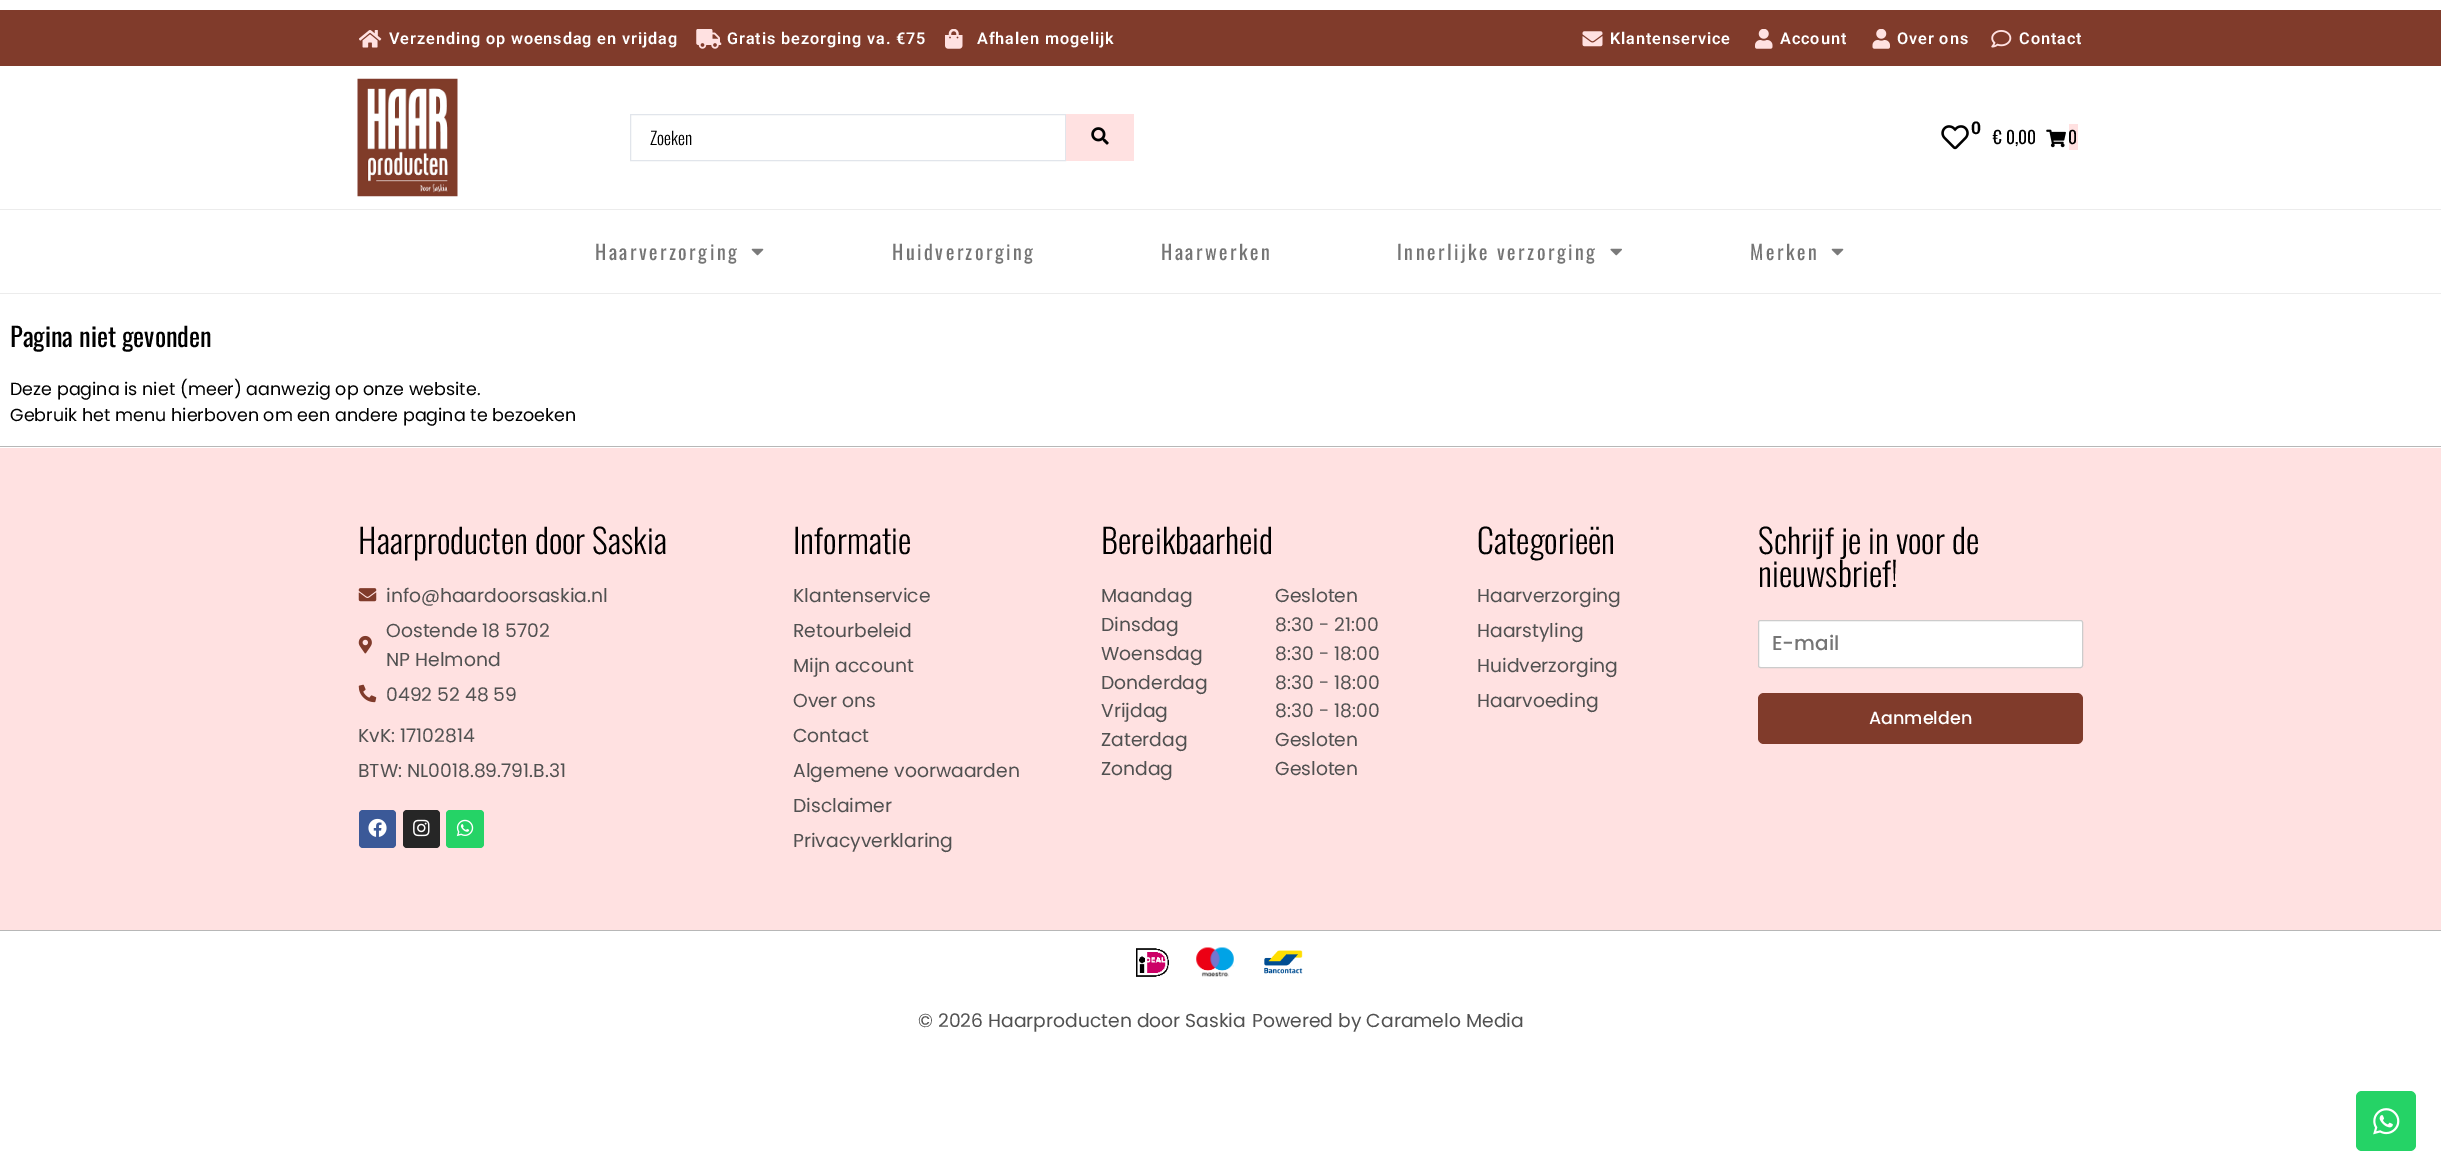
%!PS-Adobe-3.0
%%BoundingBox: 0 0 2441 1176
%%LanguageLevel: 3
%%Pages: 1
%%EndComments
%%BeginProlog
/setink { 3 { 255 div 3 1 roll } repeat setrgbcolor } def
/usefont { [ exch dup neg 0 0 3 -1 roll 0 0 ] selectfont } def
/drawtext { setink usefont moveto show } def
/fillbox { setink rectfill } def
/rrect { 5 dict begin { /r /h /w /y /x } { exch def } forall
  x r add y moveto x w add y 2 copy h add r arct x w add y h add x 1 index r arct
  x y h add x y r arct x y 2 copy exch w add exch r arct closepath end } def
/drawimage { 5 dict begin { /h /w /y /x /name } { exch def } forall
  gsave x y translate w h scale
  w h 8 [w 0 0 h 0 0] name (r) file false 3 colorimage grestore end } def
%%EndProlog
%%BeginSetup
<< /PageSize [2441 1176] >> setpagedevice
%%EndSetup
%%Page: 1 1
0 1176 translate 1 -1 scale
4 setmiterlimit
0 0 2441 1176 255 255 255 fillbox
0 10 2441 56 128 59 43 fillbox
(assets/img1.rgb) 359 30 23 18 drawimage
/Roboto-SemiBold 16.25 usefont
255 255 255 setink
389 44 moveto 0.9 0 (Verzending op woensdag en vrijdag) ashow
(assets/img2.rgb) 696 29 26 20 drawimage
727 44 moveto 0.9 0 (Gratis bezorging va. €75) ashow
(assets/img3.rgb) 945 29 18 20 drawimage
977 44 moveto 0.9 0 (Afhalen mogelijk) ashow
(assets/img4.rgb) 1582 31 21 16 drawimage
1610 44 moveto 0.9 0 (Klantenservice) ashow
(assets/img5.rgb) 1755 29 18 20 drawimage
1780 44 moveto 0.9 0 (Account) ashow
(assets/img6.rgb) 1872 29 18 20 drawimage
1897 44 moveto 0.9 0 (Over ons) ashow
(assets/img7.rgb) 1991 30 21 18 drawimage
2019 44 moveto 0.9 0 (Contact) ashow
(assets/img8.rgb) 357 78 101 119 drawimage
225 229 235 setink
630.5 114.5 435 46 rectstroke
(Zoeken) 650 145 /Oswald-Light 17.5 0 0 0 drawtext
1066 114 68 47 255 225 225 fillbox
(assets/img9.rgb) 1091 127 18 18 drawimage
(assets/img10.rgb) 1941 125 28 25 drawimage
(0) 1971 134 /Roboto-Bold 17.5 0 0 0 drawtext
(€ 0,00) 1993 144 /Oswald-Regular 17.5 0 0 0 drawtext
(assets/img11.rgb) 2046 129 20 19 drawimage
2069 124 9 26 255 225 225 fillbox
(0) 2068 144 /Oswald-Regular 17.5 0 0 0 drawtext
0 209 2441 1 236 236 236 fillbox
0 293 2441 1 236 236 236 fillbox
/Oswald-Regular 20 usefont
117 117 117 setink
595 260 moveto 2.5 0 (Haarverzorging) ashow
(assets/img12.rgb) 751 248 13 8 drawimage
892 260 moveto 2.5 0 (Huidverzorging) ashow
1161 260 moveto 2.5 0 (Haarwerken) ashow
1397 260 moveto 2.5 0 (Innerlijke verzorging) ashow
(assets/img13.rgb) 1610 248 12 8 drawimage
1750 260 moveto 2.5 0 (Merken) ashow
(assets/img12.rgb) 1831 248 13 8 drawimage
(Pagina niet gevonden) 10 347 /Oswald-Regular 26.25 0 0 0 drawtext
(Deze pagina is niet \(meer\) aanwezig op onze website.) 10 395 /Poppins-Regular 17.5 0 0 0 drawtext
(Gebruik het menu hierboven om een andere pagina te bezoeken) 10 421 /Poppins-Regular 17.5 0 0 0 drawtext
0 448 2441 482 255 225 225 fillbox
0 446 2441 1 183 183 183 fillbox
(Haarproducten door Saskia) 358 554 /Oswald-Light 33.75 0 0 0 drawtext
(assets/img14.rgb) 358 588 19 14 drawimage
(info@haardoorsaskia.nl) 386 602 /Poppins-Regular 18.75 81 81 81 drawtext
(assets/img15.rgb) 358 635 14 19 drawimage
(Oostende 18 5702) 386 637 /Poppins-Regular 18.75 81 81 81 drawtext
(NP Helmond) 386 666 /Poppins-Regular 18.75 81 81 81 drawtext
(assets/img16.rgb) 358 684 19 19 drawimage
(0492 52 48 59) 386 701 /Poppins-Regular 18.75 81 81 81 drawtext
(KvK: 17102814) 358 742 /Poppins-Regular 18.75 81 81 81 drawtext
(BTW: NL0018.89.791.B.31) 358 777 /Poppins-Regular 18.75 81 81 81 drawtext
59 89 152 setink
359 810 37 38 4 rrect fill
(assets/img17.rgb) 368 818 19 19 drawimage
38 38 38 setink
403 810 37 38 4 rrect fill
(assets/img18.rgb) 413 819 17 18 drawimage
37 211 102 setink
446 810 38 38 4 rrect fill
(assets/img19.rgb) 456 819 18 18 drawimage
(Informatie) 793 554 /Oswald-Light 33.75 0 0 0 drawtext
(Klantenservice) 793 602 /Poppins-Regular 18.75 81 81 81 drawtext
(Retourbeleid) 793 637 /Poppins-Regular 18.75 81 81 81 drawtext
(Mijn account) 793 672 /Poppins-Regular 18.75 81 81 81 drawtext
(Over ons) 793 707 /Poppins-Regular 18.75 81 81 81 drawtext
(Contact) 793 742 /Poppins-Regular 18.75 81 81 81 drawtext
(Algemene voorwaarden) 793 777 /Poppins-Regular 18.75 81 81 81 drawtext
(Disclaimer) 793 812 /Poppins-Regular 18.75 81 81 81 drawtext
(Privacyverklaring) 793 847 /Poppins-Regular 18.75 81 81 81 drawtext
(Bereikbaarheid) 1101 554 /Oswald-Light 33.75 0 0 0 drawtext
(Maandag) 1101 602 /Poppins-Regular 18.75 81 81 81 drawtext
(Dinsdag) 1101 631 /Poppins-Regular 18.75 81 81 81 drawtext
(Woensdag) 1101 660 /Poppins-Regular 18.75 81 81 81 drawtext
(Donderdag) 1101 689 /Poppins-Regular 18.75 81 81 81 drawtext
(Vrijdag) 1101 717 /Poppins-Regular 18.75 81 81 81 drawtext
(Zaterdag) 1101 746 /Poppins-Regular 18.75 81 81 81 drawtext
(Zondag) 1101 775 /Poppins-Regular 18.75 81 81 81 drawtext
(Gesloten) 1275 602 /Poppins-Regular 18.75 81 81 81 drawtext
(8:30 - 21:00) 1275 631 /Poppins-Regular 18.75 81 81 81 drawtext
(8:30 - 18:00) 1275 660 /Poppins-Regular 18.75 81 81 81 drawtext
(8:30 - 18:00) 1275 689 /Poppins-Regular 18.75 81 81 81 drawtext
(8:30 - 18:00) 1275 717 /Poppins-Regular 18.75 81 81 81 drawtext
(Gesloten) 1275 746 /Poppins-Regular 18.75 81 81 81 drawtext
(Gesloten) 1275 775 /Poppins-Regular 18.75 81 81 81 drawtext
(Categorieën) 1477 554 /Oswald-Light 33.75 0 0 0 drawtext
(Haarverzorging) 1477 602 /Poppins-Regular 18.75 81 81 81 drawtext
(Haarstyling) 1477 637 /Poppins-Regular 18.75 81 81 81 drawtext
(Huidverzorging) 1477 672 /Poppins-Regular 18.75 81 81 81 drawtext
(Haarvoeding) 1477 707 /Poppins-Regular 18.75 81 81 81 drawtext
(Schrijf je in voor de) 1758 554 /Oswald-Light 33.75 0 0 0 drawtext
(nieuwsbrief!) 1758 587 /Oswald-Light 33.75 0 0 0 drawtext
255 255 255 setink
1758.5 620.5 324 47 2 rrect gsave fill grestore
204 204 204 setink
stroke
(E-mail) 1772 650 /Poppins-Medium 20 117 117 117 drawtext
128 59 43 setink
1758 693 325 51 6 rrect fill
(Aanmelden) 1869 724 /Poppins-Medium 17.5 255 255 255 drawtext
0 930 2441 1 183 183 183 fillbox
(assets/img20.rgb) 1136 948 33 29 drawimage
(assets/img21.rgb) 1196 947 38 30 drawimage
(assets/img22.rgb) 1264 950 39 24 drawimage
(© 2026 Haarproducten door Saskia) 918 1027 /Poppins-Regular 18.75 81 81 81 drawtext
(Powered by Caramelo Media) 1252 1027 /Poppins-Regular 18.75 81 81 81 drawtext
37 211 102 setink
2356 1091 60 60 6 rrect fill
(assets/img23.rgb) 2373 1108 27 27 drawimage
showpage
%%EOF
